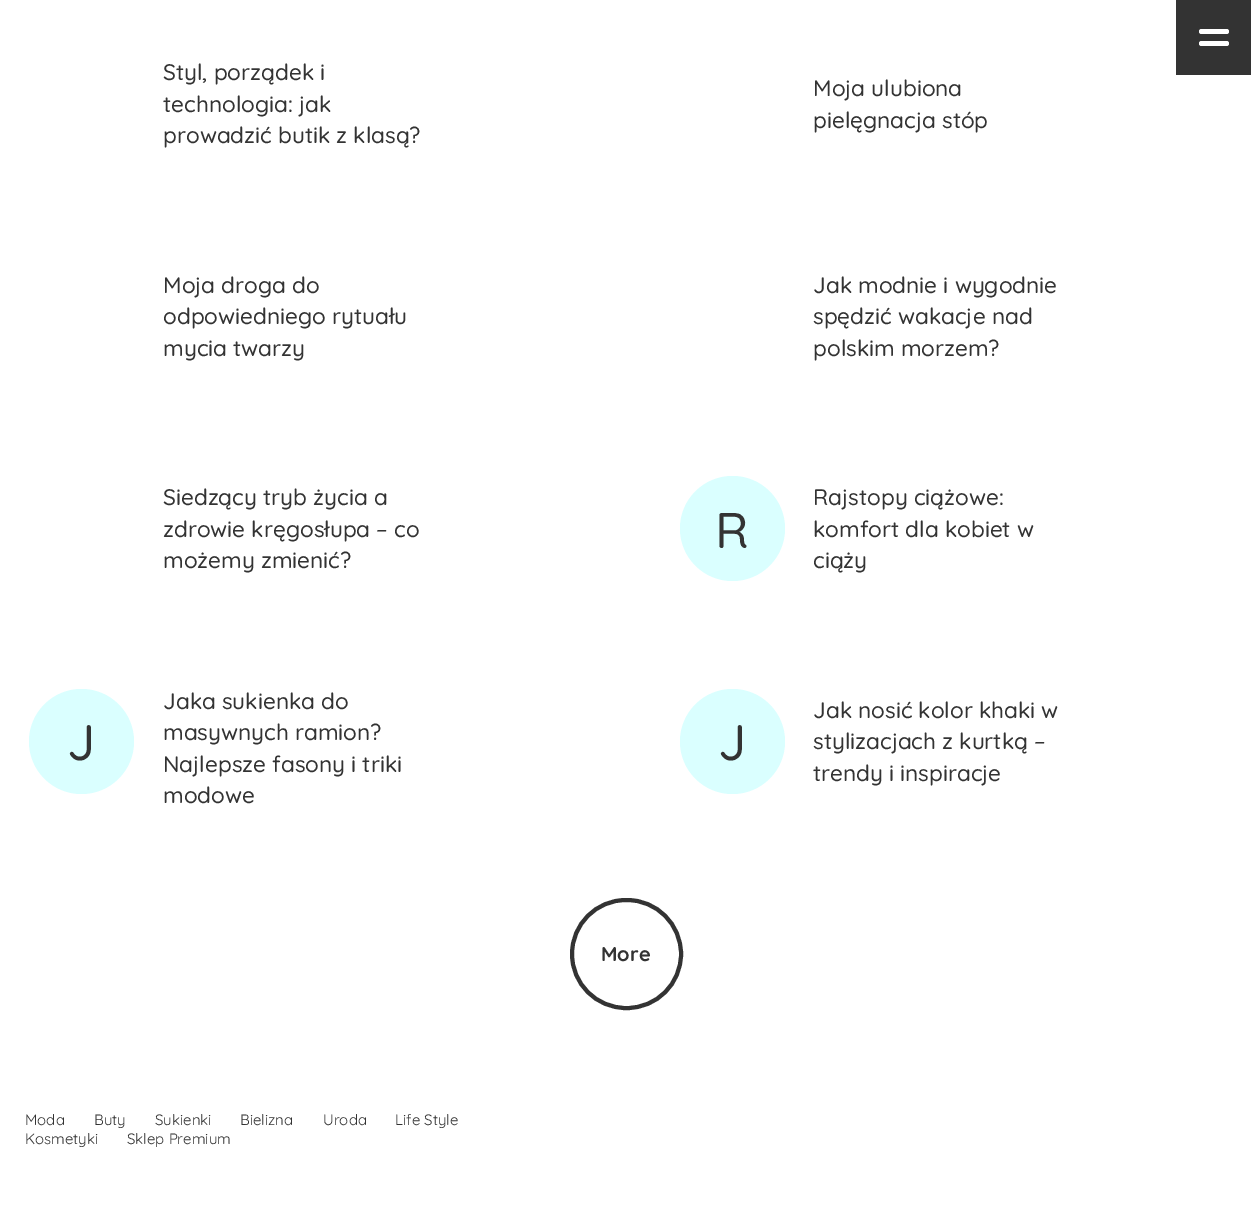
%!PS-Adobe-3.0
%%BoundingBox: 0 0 1251 1220
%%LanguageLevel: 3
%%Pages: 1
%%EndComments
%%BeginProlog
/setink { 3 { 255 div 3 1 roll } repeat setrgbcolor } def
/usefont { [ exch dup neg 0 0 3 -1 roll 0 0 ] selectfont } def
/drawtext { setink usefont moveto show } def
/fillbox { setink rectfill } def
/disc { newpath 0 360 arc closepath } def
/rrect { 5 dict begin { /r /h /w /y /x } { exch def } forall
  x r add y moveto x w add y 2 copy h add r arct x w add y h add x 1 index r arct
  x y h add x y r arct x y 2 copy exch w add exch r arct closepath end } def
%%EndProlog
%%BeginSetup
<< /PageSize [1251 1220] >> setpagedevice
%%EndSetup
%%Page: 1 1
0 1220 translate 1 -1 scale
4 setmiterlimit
0 0 1251 1220 255 255 255 fillbox
1176 0 75 75 51 51 51 fillbox
255 255 255 setink
1199 29 30 5 2.5 rrect fill
1199 41 30 5 2.5 rrect fill
(Styl, porządek i) 163 80 /Quicksand-Medium 22.5 51 51 51 drawtext
(technologia: jak) 163 112 /Quicksand-Medium 22.5 51 51 51 drawtext
(prowadzić butik z klasą?) 163 143 /Quicksand-Medium 22.5 51 51 51 drawtext
(Moja ulubiona) 813 96 /Quicksand-Medium 22.5 51 51 51 drawtext
(pielęgnacja stóp) 813 128 /Quicksand-Medium 22.5 51 51 51 drawtext
(Moja droga do) 163 293 /Quicksand-Medium 22.5 51 51 51 drawtext
(odpowiedniego rytuału) 163 324 /Quicksand-Medium 22.5 51 51 51 drawtext
(mycia twarzy) 163 356 /Quicksand-Medium 22.5 51 51 51 drawtext
(Jak modnie i wygodnie) 813 293 /Quicksand-Medium 22.5 51 51 51 drawtext
(spędzić wakacje nad) 813 324 /Quicksand-Medium 22.5 51 51 51 drawtext
(polskim morzem?) 813 356 /Quicksand-Medium 22.5 51 51 51 drawtext
(Siedzący tryb życia a) 163 505 /Quicksand-Medium 22.5 51 51 51 drawtext
(zdrowie kręgosłupa – co) 163 537 /Quicksand-Medium 22.5 51 51 51 drawtext
(możemy zmienić?) 163 568 /Quicksand-Medium 22.5 51 51 51 drawtext
218 255 255 setink
732.5 528.5 52.5 disc fill
(R) 715 548 /Quicksand-Medium 50 51 51 51 drawtext
(Rajstopy ciążowe:) 813 505 /Quicksand-Medium 22.5 51 51 51 drawtext
(komfort dla kobiet w) 813 537 /Quicksand-Medium 22.5 51 51 51 drawtext
(ciąży) 813 568 /Quicksand-Medium 22.5 51 51 51 drawtext
218 255 255 setink
81.5 741.5 52.5 disc fill
(J) 67 760 /Quicksand-Medium 50 51 51 51 drawtext
(Jaka sukienka do) 163 709 /Quicksand-Medium 22.5 51 51 51 drawtext
(masywnych ramion?) 163 740 /Quicksand-Medium 22.5 51 51 51 drawtext
(Najlepsze fasony i triki) 163 772 /Quicksand-Medium 22.5 51 51 51 drawtext
(modowe) 163 803 /Quicksand-Medium 22.5 51 51 51 drawtext
218 255 255 setink
732.5 741.5 52.5 disc fill
(J) 718 760 /Quicksand-Medium 50 51 51 51 drawtext
(Jak nosić kolor khaki w) 813 718 /Quicksand-Medium 22.5 51 51 51 drawtext
(stylizacjach z kurtką –) 813 749 /Quicksand-Medium 22.5 51 51 51 drawtext
(trendy i inspiracje) 813 781 /Quicksand-Medium 22.5 51 51 51 drawtext
4 setlinewidth
572 900 109 108 54 rrect stroke
(More) 601 961 /Quicksand-Bold 20 51 51 51 drawtext
(Moda) 25 1125 /Quicksand-Regular 15 51 51 51 drawtext
(Buty) 94 1125 /Quicksand-Regular 15 51 51 51 drawtext
(Sukienki) 155 1125 /Quicksand-Regular 15 51 51 51 drawtext
(Bielizna) 240 1125 /Quicksand-Regular 15 51 51 51 drawtext
(Uroda) 323 1125 /Quicksand-Regular 15 51 51 51 drawtext
(Life Style) 395 1125 /Quicksand-Regular 15 51 51 51 drawtext
(Kosmetyki) 25 1144 /Quicksand-Regular 15 51 51 51 drawtext
(Sklep Premium) 127 1144 /Quicksand-Regular 15 51 51 51 drawtext
showpage
%%EOF
